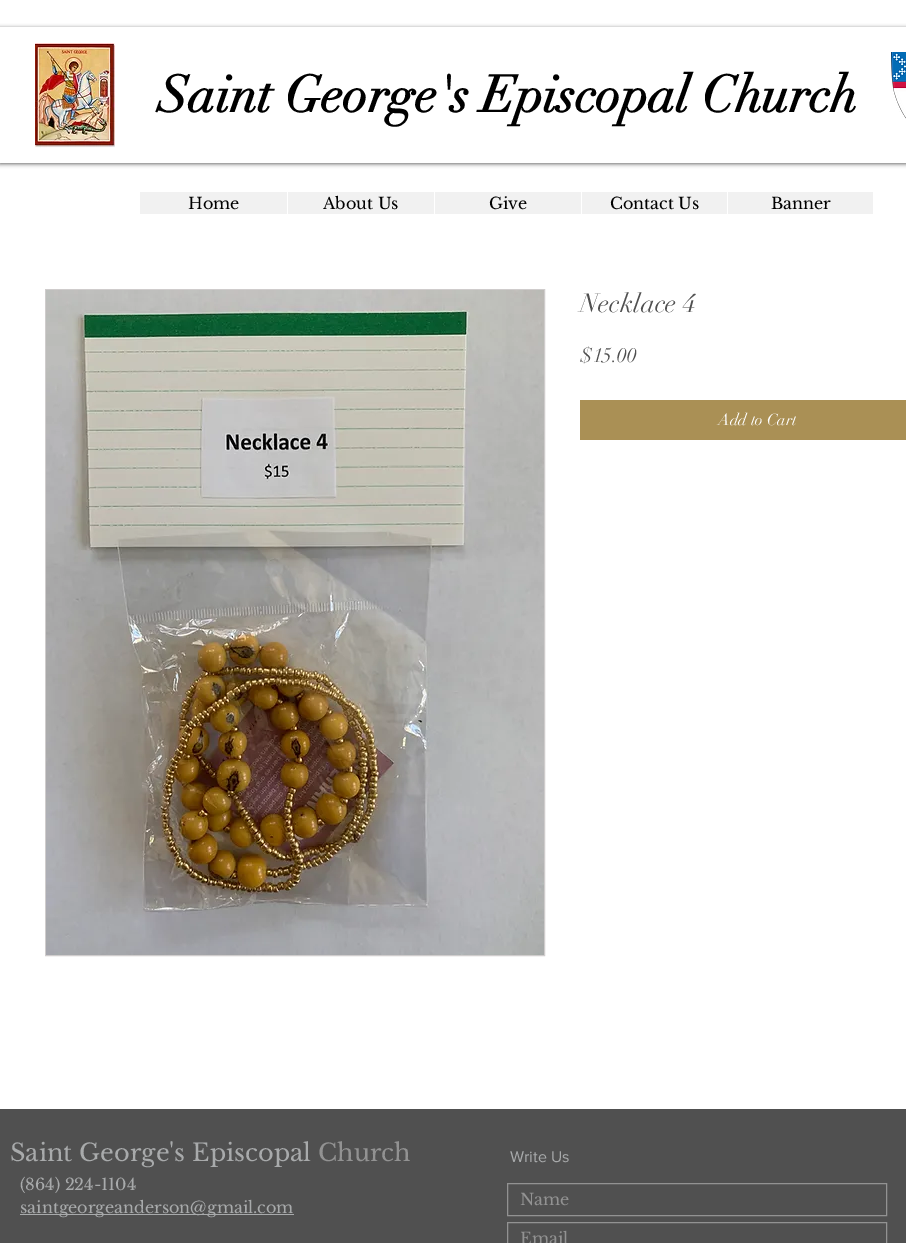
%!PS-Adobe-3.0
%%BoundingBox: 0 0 906 1243
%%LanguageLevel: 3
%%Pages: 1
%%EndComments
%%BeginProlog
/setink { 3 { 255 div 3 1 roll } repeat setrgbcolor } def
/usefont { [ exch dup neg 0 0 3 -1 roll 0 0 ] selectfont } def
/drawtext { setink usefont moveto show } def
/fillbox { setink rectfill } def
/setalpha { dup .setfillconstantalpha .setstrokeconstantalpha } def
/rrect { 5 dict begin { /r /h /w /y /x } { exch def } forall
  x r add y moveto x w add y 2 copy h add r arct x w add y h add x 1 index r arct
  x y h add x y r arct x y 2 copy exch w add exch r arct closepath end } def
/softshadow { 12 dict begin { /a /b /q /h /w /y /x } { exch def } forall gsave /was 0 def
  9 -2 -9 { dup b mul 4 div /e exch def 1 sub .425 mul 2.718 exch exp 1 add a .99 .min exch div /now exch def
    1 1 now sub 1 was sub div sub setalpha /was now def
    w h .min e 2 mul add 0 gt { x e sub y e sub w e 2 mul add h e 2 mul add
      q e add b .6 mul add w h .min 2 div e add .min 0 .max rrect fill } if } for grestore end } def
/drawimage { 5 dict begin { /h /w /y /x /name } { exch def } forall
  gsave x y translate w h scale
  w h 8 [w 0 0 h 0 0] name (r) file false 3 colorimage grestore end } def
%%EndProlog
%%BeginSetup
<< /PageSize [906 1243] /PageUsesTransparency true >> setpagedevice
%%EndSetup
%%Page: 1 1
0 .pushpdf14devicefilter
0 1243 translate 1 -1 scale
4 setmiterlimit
0 0 906 1243 255 255 255 fillbox
gsave
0 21 moveto 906 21 lineto 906 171 lineto 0 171 lineto closepath 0 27 moveto 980 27 lineto 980 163 lineto 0 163 lineto closepath eoclip newpath
0 0 0 setink
0 28 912 136 0 2 0.6 softshadow
grestore
(assets/img1.rgb) 35 43 80 105 drawimage
(assets/img2.rgb) 891 52 15 67 drawimage
(Saint George's Episcopal Church) 158 112 /didot-Bold 51 0 0 0 drawtext
140 192 733 22 241 241 241 fillbox
(Home) 188 209 /LibreBaskerville-Regular 16 0 0 0 drawtext
287 192 1 22 255 255 255 fillbox
(About Us) 323 209 /LibreBaskerville-Regular 16 0 0 0 drawtext
434 192 1 22 255 255 255 fillbox
(Give) 489 209 /LibreBaskerville-Regular 16 0 0 0 drawtext
581 192 1 22 255 255 255 fillbox
(Contact Us) 610 209 /LibreBaskerville-Regular 16 0 0 0 drawtext
727 192 1 22 255 255 255 fillbox
(Banner) 771 209 /LibreBaskerville-Regular 16 0 0 0 drawtext
207 204 204 setink
45.5 289.5 499 666 rectstroke
(assets/img3.rgb) 46 290 498 665 drawimage
(Necklace 4) 580 312 /didot-Regular 26 80 80 80 drawtext
($15.00) 580 362 /didot-Regular 20 80 80 80 drawtext
580 400 326 40 170 144 85 fillbox
(Add to Cart) 718 425 /didot-Regular 16 255 255 255 drawtext
0 1109 906 134 80 80 80 fillbox
(Saint George's Episcopal) 10 1161 /LibreBaskerville-Regular 24 168 170 171 drawtext
(Church) 318 1161 /LibreBaskerville-Regular 24 146 146 146 drawtext
(Write Us) 510 1162 /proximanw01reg-Regular 16 168 170 171 drawtext
(\(864\) 224-1104) 20 1190 /LibreBaskerville-Regular 16 168 170 171 drawtext
20 1214 274 1 168 170 171 fillbox
(saintgeorgeanderson@gmail.com) 20 1213 /LibreBaskerville-Regular 16 168 170 171 drawtext
146 146 146 setink
507.5 1183.5 379 32 rectstroke
(Name) 520 1205 /LibreBaskerville-Regular 16 146 146 146 drawtext
507.5 1222.5 379 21 rectstroke
(Email) 520 1244 /LibreBaskerville-Regular 16 146 146 146 drawtext
.poppdf14devicefilter showpage
%%EOF
